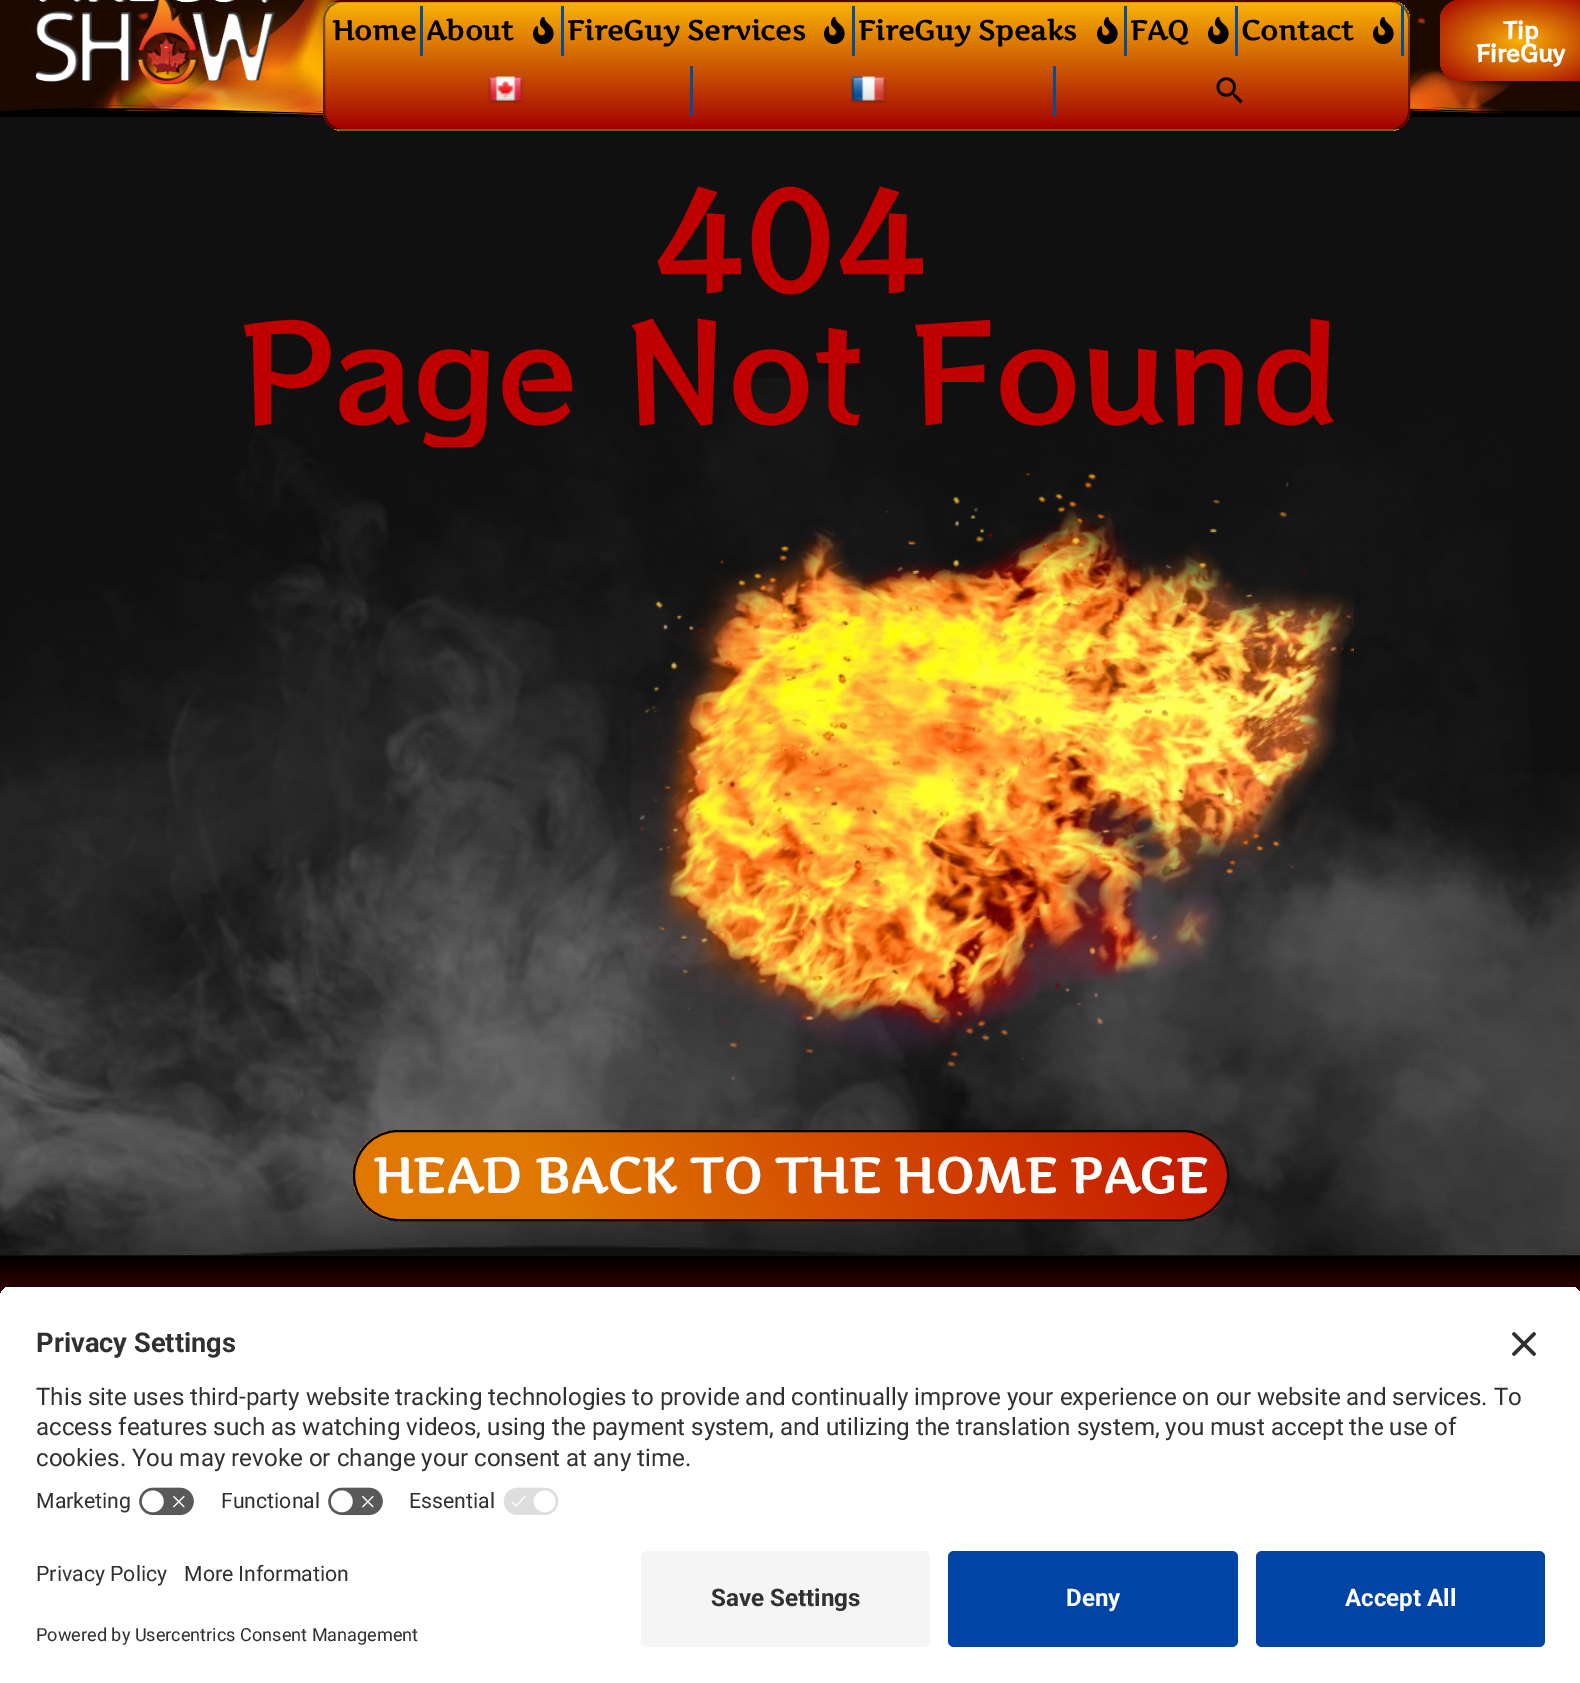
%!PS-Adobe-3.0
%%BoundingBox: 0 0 1580 1683
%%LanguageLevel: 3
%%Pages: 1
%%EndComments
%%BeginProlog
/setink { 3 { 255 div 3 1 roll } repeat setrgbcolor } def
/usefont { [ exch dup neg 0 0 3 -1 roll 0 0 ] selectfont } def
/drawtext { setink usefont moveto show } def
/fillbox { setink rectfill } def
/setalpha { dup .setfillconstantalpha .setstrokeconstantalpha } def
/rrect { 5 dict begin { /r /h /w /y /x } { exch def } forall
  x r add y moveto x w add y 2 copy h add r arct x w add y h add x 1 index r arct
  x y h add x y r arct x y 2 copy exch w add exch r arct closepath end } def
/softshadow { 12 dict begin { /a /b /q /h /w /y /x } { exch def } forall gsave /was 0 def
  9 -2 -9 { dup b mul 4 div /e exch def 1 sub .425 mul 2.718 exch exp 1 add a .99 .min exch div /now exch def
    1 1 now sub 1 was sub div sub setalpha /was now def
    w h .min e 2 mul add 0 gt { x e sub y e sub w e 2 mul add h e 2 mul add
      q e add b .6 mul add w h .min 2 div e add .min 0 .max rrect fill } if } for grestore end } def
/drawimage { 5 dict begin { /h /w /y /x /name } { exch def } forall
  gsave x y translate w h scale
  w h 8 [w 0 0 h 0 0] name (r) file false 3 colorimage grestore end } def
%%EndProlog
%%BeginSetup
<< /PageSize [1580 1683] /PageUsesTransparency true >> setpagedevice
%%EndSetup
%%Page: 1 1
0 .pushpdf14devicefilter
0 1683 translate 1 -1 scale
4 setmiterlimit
0 0 1580 1683 16 16 16 fillbox
(assets/img1.rgb) 0 0 1580 115 drawimage
(assets/img2.rgb) 35 0 240 85 drawimage
gsave
323 0 1087 131 20 rrect clip newpath
gsave 334 0 moveto 1399 0 lineto 1399 2 lineto 334 2 lineto closepath clip newpath
<< /ShadingType 2 /ColorSpace /DeviceRGB /Coords [866 -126 866 1.5] /Extend [true true] /Function << /FunctionType 2 /Domain [0 1] /C0 [0.976 0.706 0.024] /C1 [0.639 0.004 0.004] /N 1 >> >> shfill grestore
grestore
(assets/img7.rgb) 0 105 1580 12 drawimage
gsave
323 0 1087 131 20 rrect clip newpath
gsave 323 2 moveto 1410 2 lineto 1410 129 lineto 323 129 lineto closepath clip newpath
<< /ShadingType 2 /ColorSpace /DeviceRGB /Coords [866 1.5 866 129] /Extend [true true] /Function << /FunctionType 2 /Domain [0 1] /C0 [0.976 0.706 0.024] /C1 [0.639 0.004 0.004] /N 1 >> >> shfill grestore
gsave 334 129 moveto 1399 129 lineto 1399 131 lineto 334 131 lineto closepath clip newpath
<< /ShadingType 2 /ColorSpace /DeviceRGB /Coords [866 129 866 257] /Extend [true true] /Function << /FunctionType 2 /Domain [0 1] /C0 [0.976 0.706 0.024] /C1 [0.639 0.004 0.004] /N 1 >> >> shfill grestore
grestore
0.5 setalpha
0 0 0 setink
2 setlinewidth
324 1 1085 129 19 rrect stroke
1 setalpha
(Home) 332 40 /Artifika-Bold 27.5 0 0 0 drawtext
420 6 3 50 8 76 147 fillbox
(About) 426 40 /Artifika-Bold 27.5 0 0 0 drawtext
(assets/img3.rgb) 533 17 21 28 drawimage
561 6 3 50 8 76 147 fillbox
(FireGuy Services) 567 40 /Artifika-Bold 27.5 0 0 0 drawtext
(assets/img3.rgb) 824 17 21 28 drawimage
852 6 3 50 8 76 147 fillbox
(FireGuy Speaks) 858 40 /Artifika-Bold 27.5 0 0 0 drawtext
(assets/img3.rgb) 1097 17 21 28 drawimage
1124 6 3 50 8 76 147 fillbox
(FAQ) 1130 40 /Artifika-Bold 27.5 0 0 0 drawtext
(assets/img3.rgb) 1208 17 21 28 drawimage
1235 6 3 50 8 76 147 fillbox
(Contact) 1241 40 /Artifika-Bold 27.5 0 0 0 drawtext
(assets/img3.rgb) 1373 17 21 28 drawimage
1401 6 3 50 8 76 147 fillbox
(assets/img4.rgb) 487 76 37 28 drawimage
690 66 3 50 8 76 147 fillbox
(assets/img5.rgb) 850 76 37 28 drawimage
1053 66 3 50 8 76 147 fillbox
(assets/img6.rgb) 1216 77 27 27 drawimage
gsave 1440 0 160 81 20 rrect clip newpath 1520 41 translate 113 57 scale
<< /ShadingType 3 /ColorSpace /DeviceRGB /Coords [0 0 0 0 0 1] /Extend [true true] /Function << /FunctionType 2 /Domain [0 1] /C0 [0.976 0.706 0.024] /C1 [0.639 0.004 0.004] /N 1 >> >> shfill grestore
(Tip) 1503 39 /RocknRollOne-Bold 22.5 255 255 255 drawtext
(FireGuy) 1476 62 /RocknRollOne-Bold 22.5 255 255 255 drawtext
(assets/img8.rgb) 0 378 1580 877 drawimage
(404) 654 292 /RocknRollOne-Regular 132 190 0 0 drawtext
gsave
15 153 1551 294 rectclip
(Page Not Found) 241 424 /RocknRollOne-Regular 132 190 0 0 drawtext
grestore
(assets/img9.rgb) 631 472 724 608 drawimage
gsave
353 1130 876 91 45.5 rrect clip newpath
gsave 354 1131 moveto 1227 1131 lineto 1227 1220 lineto 354 1220 lineto closepath clip newpath
<< /ShadingType 2 /ColorSpace /DeviceRGB /Coords [415 1350 1166 1000] /Extend [true true] /Function << /FunctionType 3 /Domain [0 1] /Functions [<< /FunctionType 2 /Domain [0 1] /C0 [0.875 0.467 0] /C1 [0.875 0.467 0] /N 1 >> << /FunctionType 2 /Domain [0 1] /C0 [0.875 0.467 0] /C1 [0.769 0.078 0] /N 1 >>] /Bounds [0.23] /Encode [0 1 0 1] >> >> shfill grestore
grestore
0 0 0 setink
354 1131 874 89 44.5 rrect stroke
(HEAD BACK TO THE HOME PAGE) 373 1193 /Artifika-Bold 49.5 255 255 255 drawtext
gsave 0 1256 moveto 1580 1256 lineto 1580 1298 lineto 0 1298 lineto closepath clip newpath
<< /ShadingType 2 /ColorSpace /DeviceRGB /Coords [791 1255 791 1388] /Extend [true true] /Function << /FunctionType 2 /Domain [0 1] /C0 [0 0 0] /C1 [0.745 0 0] /N 1 >> >> shfill grestore
0 0 0 setink
0 1290 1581 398 12 5 0.8 softshadow
gsave
12 1286 moveto 1569 1286 lineto 1575.5 1286 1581 1291.5 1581 1298 curveto 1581 1539 lineto 0 1539 lineto 0 1298 lineto 0 1291.5 5.5 1286 12 1286 curveto closepath clip newpath
0 1287 1580 252 255 255 255 fillbox
0 1287 1580 192 255 255 255 fillbox
grestore
(Privacy Settings) 36 1352 /Roboto-Bold 27.25 48 48 48 drawtext
(assets/img10.rgb) 1512 1332 24 24 drawimage
(This site uses third-party website tracking technologies to provide and continually improve your experience on our website and services. To) 36 1405 /Roboto-Regular 24.15 48 48 48 drawtext
(access features such as watching videos, using the payment system, and utilizing the translation system, you must accept the use of) 36 1435 /Roboto-Regular 24.15 48 48 48 drawtext
(cookies. You may revoke or change your consent at any time.) 36 1466 /Roboto-Regular 24.15 48 48 48 drawtext
(Marketing) 36 1508 /Roboto-Regular 21.25 48 48 48 drawtext
(assets/img11.rgb) 139 1487 55 29 drawimage
(Functional) 221 1508 /Roboto-Regular 21.25 48 48 48 drawtext
(assets/img11.rgb) 328 1487 55 29 drawimage
(Essential) 409 1508 /Roboto-Regular 21.25 48 48 48 drawtext
(assets/img12.rgb) 503 1487 56 28 drawimage
0 1539 1580 144 255 255 255 fillbox
(Privacy Policy) 36 1581 /Roboto-Regular 21.25 48 48 48 drawtext
(More Information) 184 1581 /Roboto-Regular 21.25 48 48 48 drawtext
(Powered by Usercentrics Consent Management) 36 1641 /Roboto-Regular 18.1 48 48 48 drawtext
245 245 245 setink
641 1551 289 96 6 rrect fill
(Save Settings) 711 1606 /Roboto-Bold 24.15 48 48 48 drawtext
0 69 165 setink
948 1551 290 96 6 rrect fill
(Deny) 1066 1606 /Roboto-Bold 24.15 255 255 255 drawtext
0 69 165 setink
1256 1551 289 96 6 rrect fill
(Accept All) 1345 1606 /Roboto-Bold 24.15 255 255 255 drawtext
.poppdf14devicefilter showpage
%%EOF
